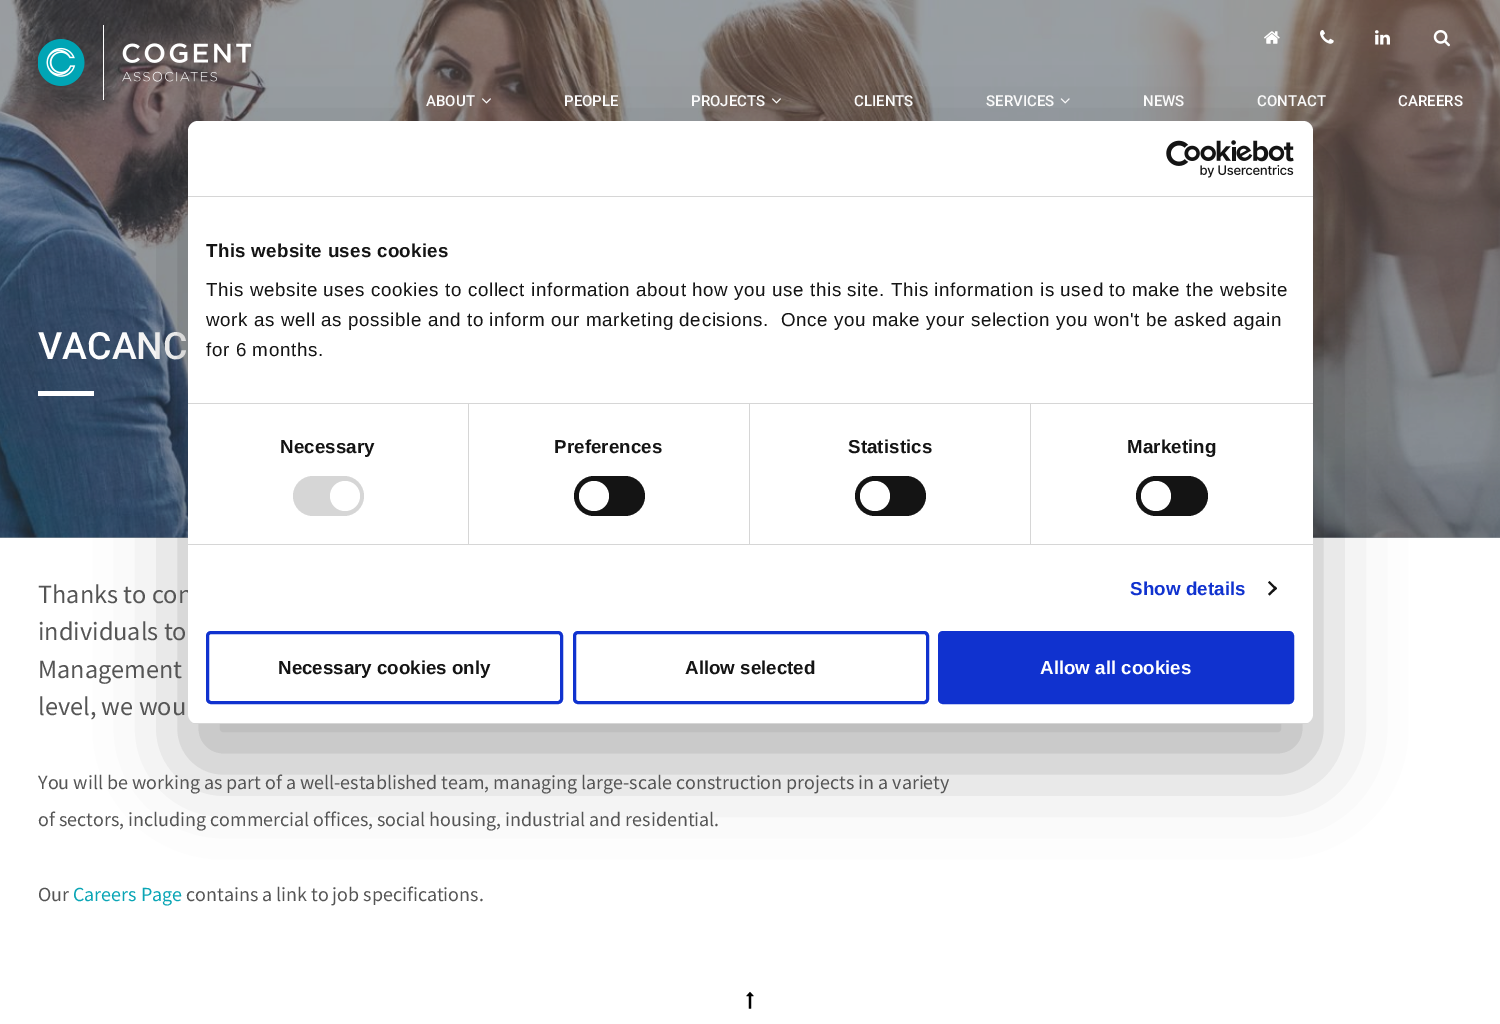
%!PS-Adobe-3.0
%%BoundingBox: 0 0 1500 1024
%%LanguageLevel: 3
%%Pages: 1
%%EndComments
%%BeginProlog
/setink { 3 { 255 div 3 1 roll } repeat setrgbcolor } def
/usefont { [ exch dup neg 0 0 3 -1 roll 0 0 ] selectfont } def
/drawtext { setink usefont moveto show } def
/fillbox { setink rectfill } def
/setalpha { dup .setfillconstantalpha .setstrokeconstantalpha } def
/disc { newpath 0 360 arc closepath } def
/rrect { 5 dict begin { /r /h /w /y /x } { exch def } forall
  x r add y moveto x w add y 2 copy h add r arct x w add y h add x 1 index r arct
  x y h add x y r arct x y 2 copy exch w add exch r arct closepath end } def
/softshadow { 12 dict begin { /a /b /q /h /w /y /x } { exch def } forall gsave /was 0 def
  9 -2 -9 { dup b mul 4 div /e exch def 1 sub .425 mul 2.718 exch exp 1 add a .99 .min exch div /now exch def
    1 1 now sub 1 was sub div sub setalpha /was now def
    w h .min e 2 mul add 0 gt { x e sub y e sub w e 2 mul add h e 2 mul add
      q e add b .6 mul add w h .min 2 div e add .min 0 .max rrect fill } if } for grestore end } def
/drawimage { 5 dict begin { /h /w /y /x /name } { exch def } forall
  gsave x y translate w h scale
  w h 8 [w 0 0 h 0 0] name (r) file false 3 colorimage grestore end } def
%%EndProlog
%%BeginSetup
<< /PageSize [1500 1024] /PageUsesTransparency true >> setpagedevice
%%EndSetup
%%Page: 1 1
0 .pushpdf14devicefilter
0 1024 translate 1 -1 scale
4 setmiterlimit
0 0 1500 1024 255 255 255 fillbox
0 537 1500 1 153 159 164 fillbox
(assets/img9.rgb) 0 0 1500 538 drawimage
(assets/img1.rgb) 38 25 213 75 drawimage
(assets/img2.rgb) 1264 31 16 13 drawimage
(assets/img3.rgb) 1320 30 14 14 drawimage
(assets/img4.rgb) 1375 30 15 15 drawimage
(assets/img5.rgb) 1433 30 17 17 drawimage
(ABOUT) 426 106 /Roboto-Medium 15 255 255 255 drawtext
(assets/img6.rgb) 482 98 9 6 drawimage
(PEOPLE) 564 106 /Roboto-Medium 15 255 255 255 drawtext
(PROJECTS) 691 106 /Roboto-Medium 15 255 255 255 drawtext
(assets/img7.rgb) 772 98 9 6 drawimage
(CLIENTS) 854 106 /Roboto-Medium 15 255 255 255 drawtext
(SERVICES) 986 106 /Roboto-Medium 15 255 255 255 drawtext
(assets/img8.rgb) 1060 98 10 6 drawimage
(NEWS) 1143 106 /Roboto-Medium 15 255 255 255 drawtext
(CONTACT) 1257 106 /Roboto-Medium 15 255 255 255 drawtext
(CAREERS) 1398 106 /Roboto-Medium 15 255 255 255 drawtext
(VACANC) 38 359 /Roboto-Medium 37.5 255 255 255 drawtext
38 391 56 5 255 255 255 fillbox
0 0 0 setink
188 161 1125 603 10 42.5 0.3 softshadow
(Thanks to con) 38 603 /SourceSansPro-Regular 26.25 85 85 85 drawtext
255 255 255 setink
188 121 1125 603 10 rrect fill
188 196 1125 1 214 214 214 fillbox
(assets/img10.rgb) 1166 140 128 38 drawimage
188 403 1125 1 214 214 214 fillbox
/LiberationSans-Bold 18.75 usefont
20 20 20 setink
206 257 moveto 0.3 0 (This website uses cookies) ashow
/LiberationSans-Regular 18.75 usefont
206 296 moveto 0.62 0 (This website uses cookies to collect information about how you use this site. This information is used to make the website) ashow
206 326 moveto 0.62 0 (work as well as possible and to inform our marketing decisions.  Once you make your selection you won't be asked again) ashow
206 356 moveto 0.62 0 (for 6 months.) ashow
188 544 1125 1 214 214 214 fillbox
468 404 1 140 214 214 214 fillbox
/LiberationSans-Bold 18.75 usefont
20 20 20 setink
280 453 moveto 0.1 0 (Necessary) ashow
214 214 214 setink
293 476 71 40 20 rrect fill
255 255 255 setink
345 496 15 disc fill
749 404 1 140 214 214 214 fillbox
20 20 20 setink
554 453 moveto 0.1 0 (Preferences) ashow
574 476 71 40 20 rrect fill
255 255 255 setink
594 496 15 disc fill
1030 404 1 140 214 214 214 fillbox
20 20 20 setink
848 453 moveto 0.1 0 (Statistics) ashow
855 476 71 40 20 rrect fill
255 255 255 setink
875 496 15 disc fill
20 20 20 setink
1127 453 moveto 0.1 0 (Marketing) ashow
1136 476 72 40 20 rrect fill
255 255 255 setink
1156 496 15 disc fill
16 50 207 setink
1130 595 moveto 0.1 0 (Show details) ashow
20 20 20 setink
1269.5 581 moveto 1277 588.5 lineto 1275.5 590 lineto 1268 582.5 lineto closepath fill
1275.5 586.5 moveto 1277 588.5 lineto 1269.5 595.5 lineto 1268 594 lineto closepath fill
gsave
188 121 1125 603 10 rrect clip newpath
188 723 1125 1 214 214 214 fillbox
grestore
16 50 207 setink
3 setlinewidth
207.5 632.5 354 70 3.5 rrect stroke
(Necessary cookies only) 278 674 /LiberationSans-Bold 18.75 20 20 20 drawtext
16 50 207 setink
574.5 632.5 353 70 3.5 rrect stroke
(Allow selected) 685 674 /LiberationSans-Bold 18.75 20 20 20 drawtext
16 50 207 setink
939.5 632.5 353 70 3.5 rrect gsave fill grestore
stroke
(Allow all cookies) 1040 674 /LiberationSans-Bold 18.75 255 255 255 drawtext
(individuals to) 38 640 /SourceSansPro-Regular 26.25 85 85 85 drawtext
(Management) 38 678 /SourceSansPro-Regular 26.25 85 85 85 drawtext
(level, we wou) 38 715 /SourceSansPro-Regular 26.25 85 85 85 drawtext
(You will be working as part of a well-established team, managing large-scale construction projects in a variety) 38 789 /SourceSansPro-Regular 20 85 85 85 drawtext
(of sectors, including commercial offices, social housing, industrial and residential.) 38 826 /SourceSansPro-Regular 20 85 85 85 drawtext
(Our) 38 901 /SourceSansPro-Regular 20 85 85 85 drawtext
(Careers Page) 73 901 /SourceSansPro-Regular 20 10 165 181 drawtext
(contains a link to job specifications.) 186 901 /SourceSansPro-Regular 20 85 85 85 drawtext
(assets/img11.rgb) 746 991 8 18 drawimage
.poppdf14devicefilter showpage
%%EOF
